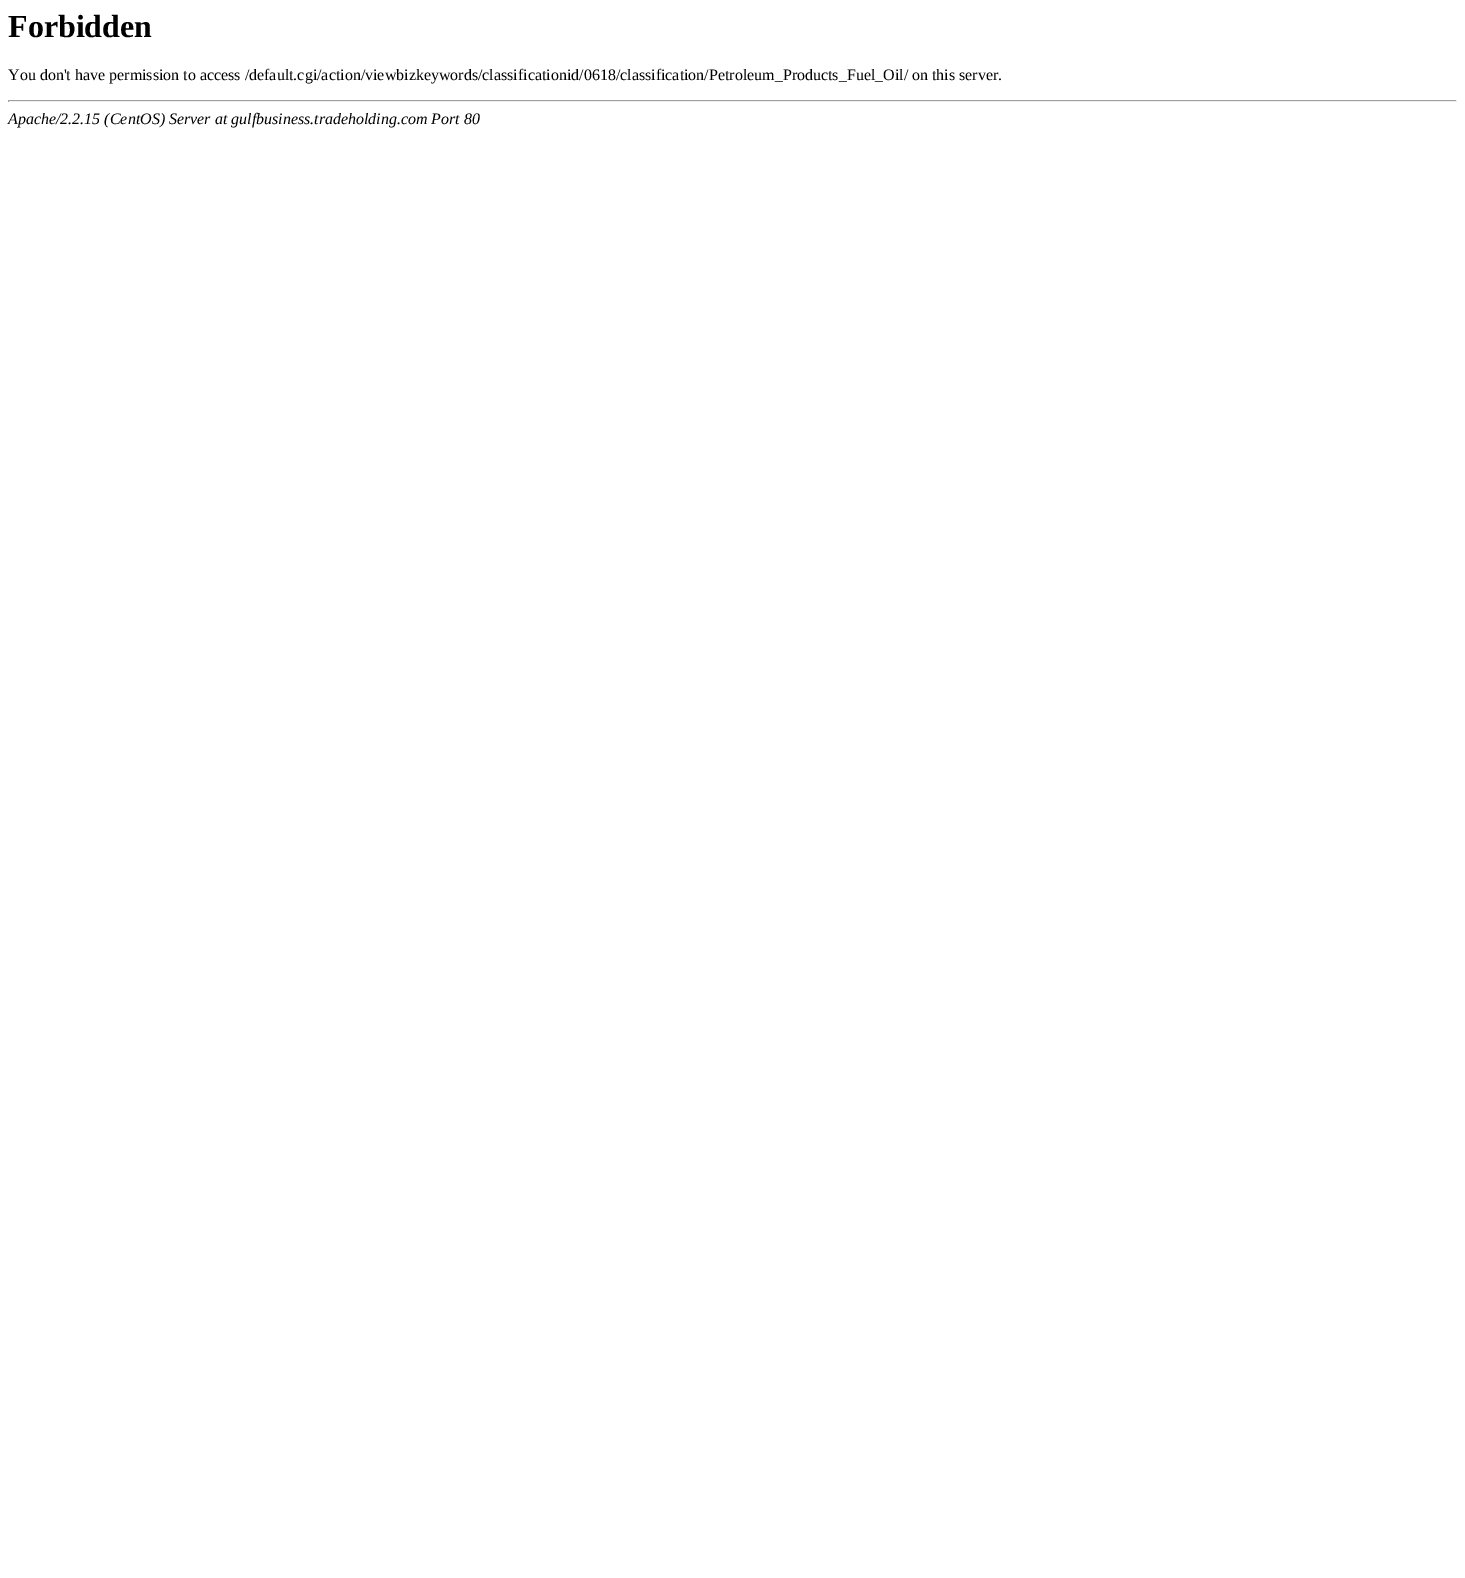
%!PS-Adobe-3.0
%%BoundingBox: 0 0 1465 1578
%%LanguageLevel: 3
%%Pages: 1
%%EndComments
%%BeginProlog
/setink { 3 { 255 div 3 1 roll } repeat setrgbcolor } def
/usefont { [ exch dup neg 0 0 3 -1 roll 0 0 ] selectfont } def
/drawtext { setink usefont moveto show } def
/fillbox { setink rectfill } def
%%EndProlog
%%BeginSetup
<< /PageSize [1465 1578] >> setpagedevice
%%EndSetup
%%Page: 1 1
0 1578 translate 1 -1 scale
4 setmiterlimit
0 0 1465 1578 255 255 255 fillbox
(Forbidden) 8 37 /LiberationSerif-Bold 32 0 0 0 drawtext
(You don't have permission to access /default.cgi/action/viewbizkeywords/classificationid/0618/classification/Petroleum_Products_Fuel_Oil/ on this server.) 8 80 /LiberationSerif-Regular 16 0 0 0 drawtext
8 100 1449 1 159 159 159 fillbox
1456 100 1 2 238 238 238 fillbox
8 101 1449 1 238 238 238 fillbox
8 100 1 2 159 159 159 fillbox
(Apache/2.2.15 \(CentOS\) Server at gulfbusiness.tradeholding.com Port 80) 8 124 /LiberationSerif-Italic 16 0 0 0 drawtext
showpage
%%EOF
